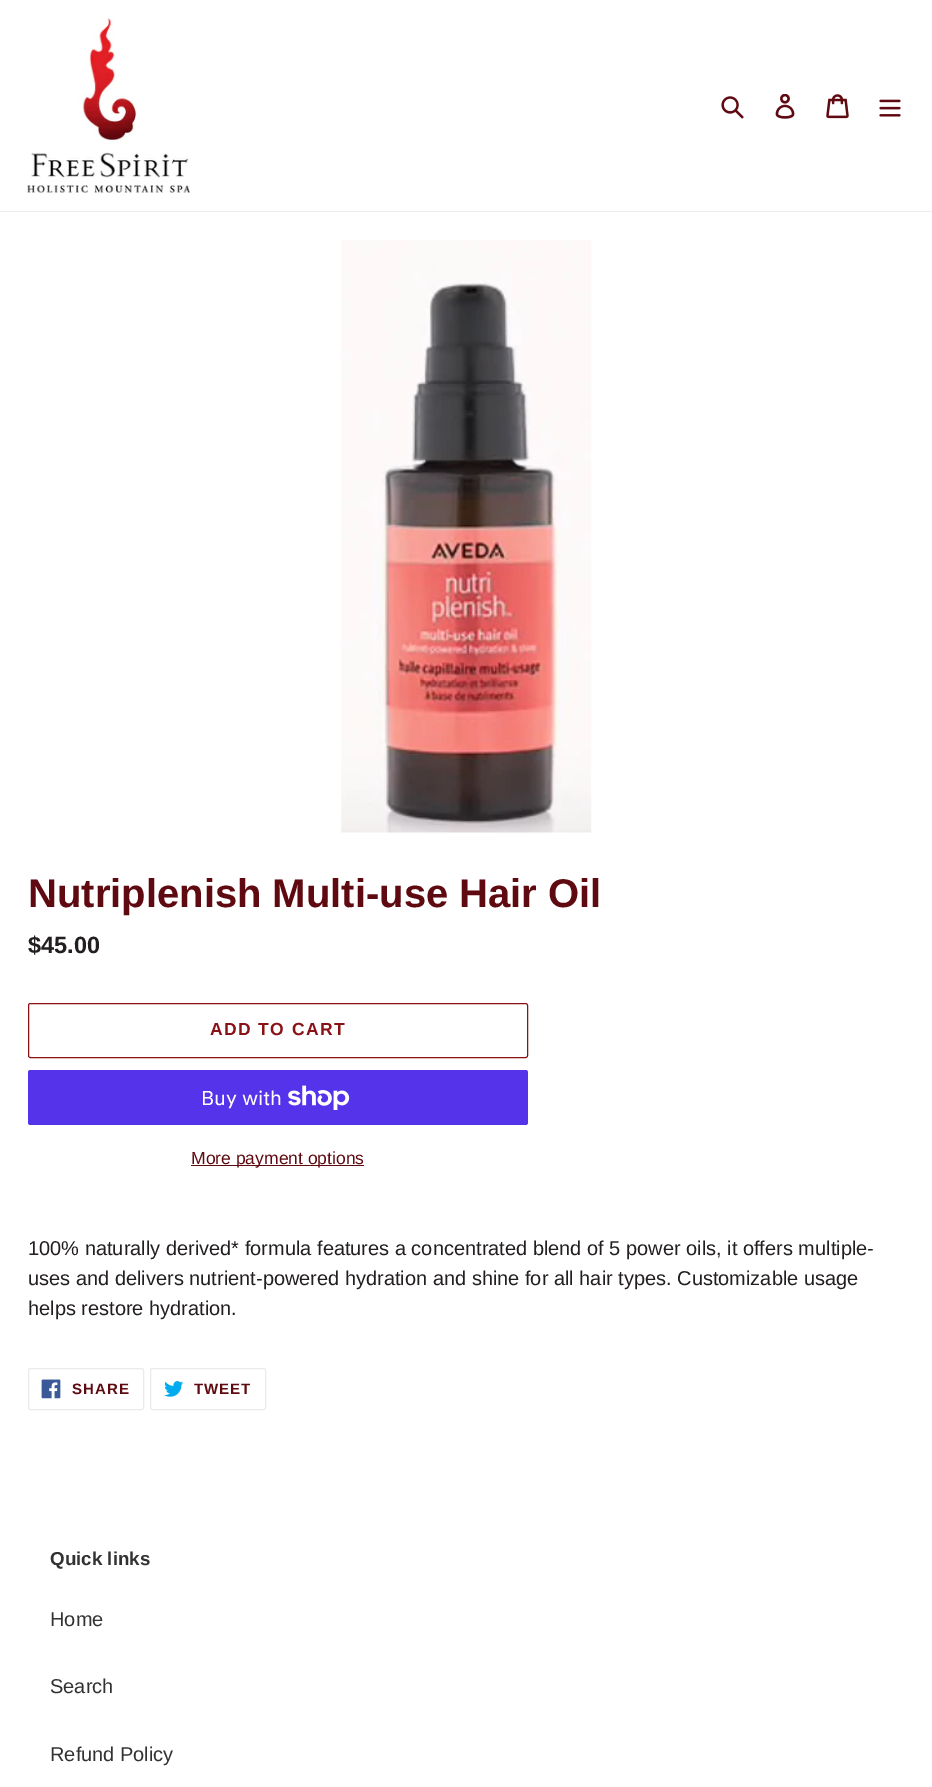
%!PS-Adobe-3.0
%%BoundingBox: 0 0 932 1787
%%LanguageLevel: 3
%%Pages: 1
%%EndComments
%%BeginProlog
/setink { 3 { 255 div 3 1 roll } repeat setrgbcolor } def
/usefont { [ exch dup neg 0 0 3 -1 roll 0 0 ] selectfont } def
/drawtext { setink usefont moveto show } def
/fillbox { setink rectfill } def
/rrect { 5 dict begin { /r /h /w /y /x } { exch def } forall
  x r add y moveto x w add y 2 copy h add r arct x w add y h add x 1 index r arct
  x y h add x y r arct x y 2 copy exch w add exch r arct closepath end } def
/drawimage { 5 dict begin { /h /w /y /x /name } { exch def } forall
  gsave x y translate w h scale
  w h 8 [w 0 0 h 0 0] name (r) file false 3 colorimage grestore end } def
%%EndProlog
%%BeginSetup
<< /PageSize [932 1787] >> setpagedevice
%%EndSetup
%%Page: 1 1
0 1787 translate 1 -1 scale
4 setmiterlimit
0 0 932 1787 255 255 255 fillbox
0 211 932 1 235 235 235 fillbox
(assets/img1.rgb) 27 18 163 175 drawimage
(assets/img2.rgb) 721 96 23 23 drawimage
(assets/img3.rgb) 775 94 20 25 drawimage
(assets/img4.rgb) 826 94 23 25 drawimage
(assets/img5.rgb) 879 99 22 18 drawimage
(assets/img6.rgb) 341 240 251 593 drawimage
(Nutriplenish Multi-use Hair Oil) 28 907 /LiberationSans-Bold 40 95 9 17 drawtext
($45.00) 28 953 /LiberationSans-Bold 23.5 35 31 32 drawtext
137 18 23 setink
28.5 1003.5 499 54 2 rrect stroke
/LiberationSans-Bold 17.5 usefont
210 1035 moveto 1.4 0 (ADD TO CART) ashow
84 51 235 setink
28 1070 500 55 2.5 rrect fill
(Buy with) 201 1105 /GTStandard-Regular 20 255 255 255 drawtext
(assets/img7.rgb) 288 1085 62 25 drawimage
191 1165 173 1 95 9 17 fillbox
(More payment options) 191 1164 /LiberationSans-Regular 17.5 95 9 17 drawtext
(100% naturally derived* formula features a concentrated blend of 5 power oils, it offers multiple-) 28 1255 /LiberationSans-Regular 20 35 31 32 drawtext
(uses and delivers nutrient-powered hydration and shine for all hair types. Customizable usage) 28 1285 /LiberationSans-Regular 20 35 31 32 drawtext
(helps restore hydration.) 28 1315 /LiberationSans-Regular 20 35 31 32 drawtext
235 235 235 setink
28.5 1368.5 115 41 2 rrect stroke
(assets/img8.rgb) 41 1379 20 20 drawimage
/LiberationSans-Bold 15 usefont
95 9 17 setink
72 1394 moveto 1 0 (SHARE) ashow
235 235 235 setink
150.5 1368.5 115 41 2 rrect stroke
(assets/img9.rgb) 164 1381 20 16 drawimage
95 9 17 setink
194 1394 moveto 1 0 (TWEET) ashow
(Quick links) 50 1565 /LiberationSans-Bold 18.75 51 50 50 drawtext
(Home) 50 1626 /LiberationSans-Regular 20 51 50 50 drawtext
(Search) 50 1693 /LiberationSans-Regular 20 51 50 50 drawtext
(Refund Policy) 50 1761 /LiberationSans-Regular 20 51 50 50 drawtext
showpage
%%EOF
